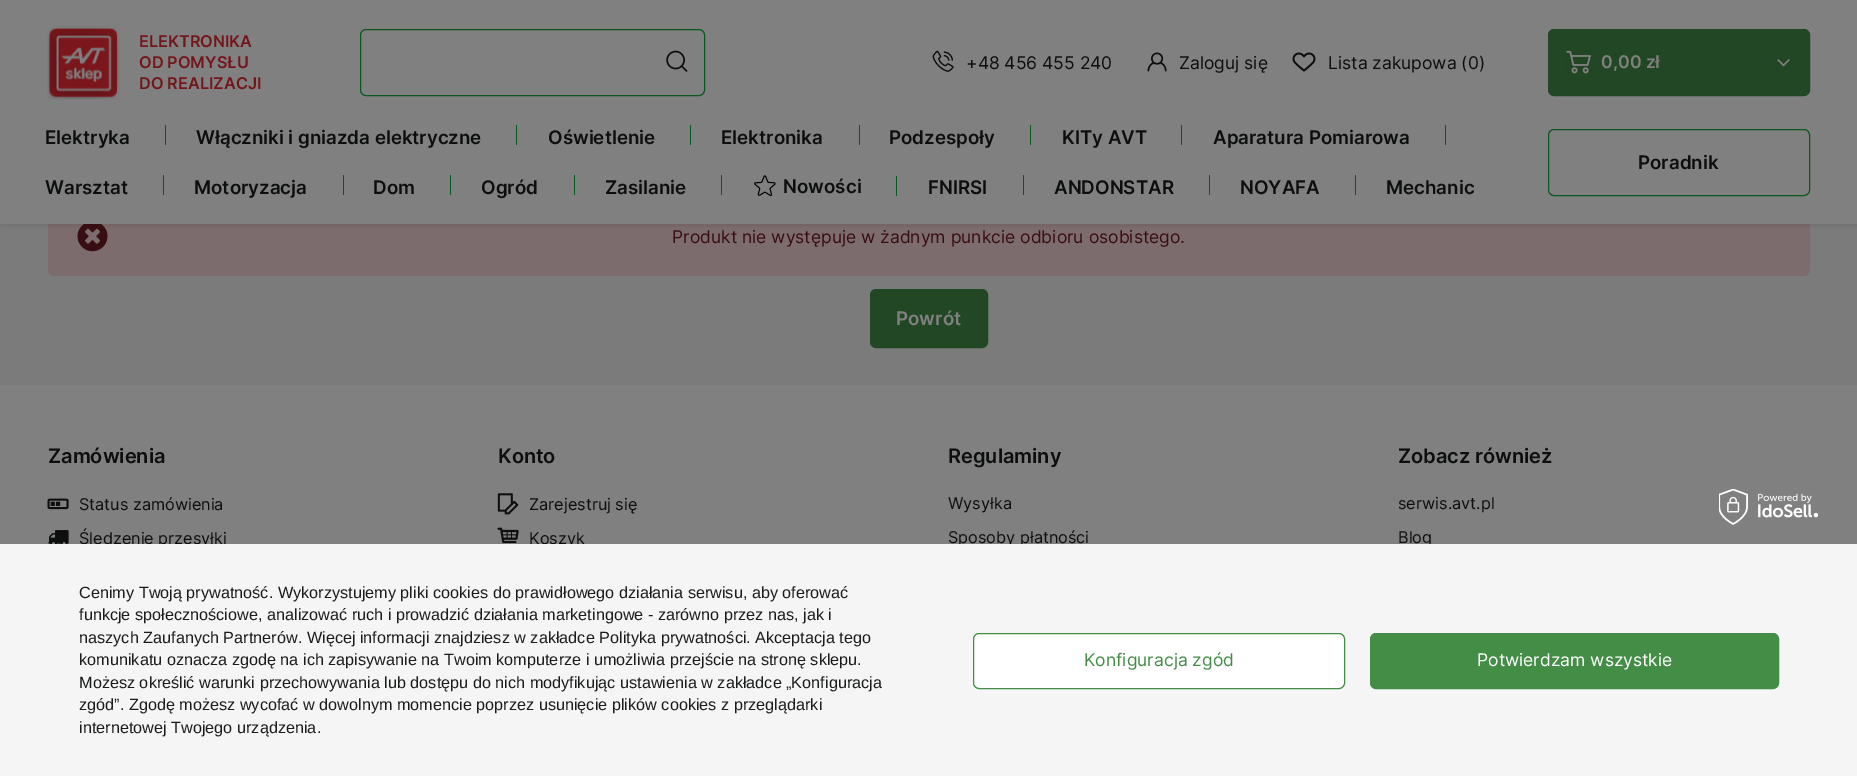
%!PS-Adobe-3.0
%%BoundingBox: 0 0 1857 776
%%LanguageLevel: 3
%%Pages: 1
%%EndComments
%%BeginProlog
/setink { 3 { 255 div 3 1 roll } repeat setrgbcolor } def
/usefont { [ exch dup neg 0 0 3 -1 roll 0 0 ] selectfont } def
/drawtext { setink usefont moveto show } def
/fillbox { setink rectfill } def
/setalpha { dup .setfillconstantalpha .setstrokeconstantalpha } def
/rrect { 5 dict begin { /r /h /w /y /x } { exch def } forall
  x r add y moveto x w add y 2 copy h add r arct x w add y h add x 1 index r arct
  x y h add x y r arct x y 2 copy exch w add exch r arct closepath end } def
/softshadow { 12 dict begin { /a /b /q /h /w /y /x } { exch def } forall gsave /was 0 def
  9 -2 -9 { dup b mul 4 div /e exch def 1 sub .425 mul 2.718 exch exp 1 add a .99 .min exch div /now exch def
    1 1 now sub 1 was sub div sub setalpha /was now def
    w h .min e 2 mul add 0 gt { x e sub y e sub w e 2 mul add h e 2 mul add
      q e add b .6 mul add w h .min 2 div e add .min 0 .max rrect fill } if } for grestore end } def
/drawimage { 5 dict begin { /h /w /y /x /name } { exch def } forall
  gsave x y translate w h scale
  w h 8 [w 0 0 h 0 0] name (r) file false 3 colorimage grestore end } def
%%EndProlog
%%BeginSetup
<< /PageSize [1857 776] /PageUsesTransparency true >> setpagedevice
%%EndSetup
%%Page: 1 1
0 .pushpdf14devicefilter
0 776 translate 1 -1 scale
4 setmiterlimit
0 0 1857 776 123 123 123 fillbox
124 108 109 setink
48 196 1762 80 6 rrect fill
(assets/img9.rgb) 77 224 31 28 drawimage
0 0 0 setink
0 3 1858 223 0 2.5 0.1 softshadow
0 0 1857 224 128 128 128 fillbox
(assets/img1.rgb) 47 25 73 75 drawimage
(ELEKTRONIKA) 139 47 /Inter-SemiBold 16.25 115 22 27 drawtext
(OD POMYSŁU) 139 68 /Inter-SemiBold 16.25 115 22 27 drawtext
(DO REALIZACJI) 139 89 /Inter-SemiBold 16.25 115 22 27 drawtext
11 87 29 setink
360.5 29.5 344 66 5.5 rrect stroke
(assets/img2.rgb) 666 50 22 22 drawimage
(assets/img3.rgb) 932 50 22 22 drawimage
(+48 456 455 240) 966 69 /Inter-Regular 17.5 13 14 14 drawtext
(assets/img4.rgb) 1147 52 20 20 drawimage
(Zaloguj się) 1179 69 /Inter-Regular 17.5 13 14 14 drawtext
(assets/img5.rgb) 1292 52 24 20 drawimage
(Lista zakupowa \(0\)) 1328 69 /Inter-Regular 17.5 13 14 14 drawtext
34 71 36 setink
1548.5 29.5 261 66 5.5 rrect gsave fill grestore
stroke
(assets/img6.rgb) 1566 50 25 24 drawimage
(0,00 zł) 1601 68 /Inter-SemiBold 17.5 128 128 128 drawtext
(assets/img7.rgb) 1777 59 13 8 drawimage
(Elektryka) 45 144 /Inter-SemiBold 18.75 13 14 14 drawtext
165 125 1 20 11 87 29 fillbox
(Włączniki i gniazda elektryczne) 196 144 /Inter-SemiBold 18.75 13 14 14 drawtext
516 125 1 20 11 87 29 fillbox
(Oświetlenie) 548 144 /Inter-SemiBold 18.75 13 14 14 drawtext
690 125 1 20 11 87 29 fillbox
(Elektronika) 721 144 /Inter-SemiBold 18.75 13 14 14 drawtext
859 125 1 20 11 87 29 fillbox
(Podzespoły) 889 144 /Inter-SemiBold 18.75 13 14 14 drawtext
1030 125 1 20 11 87 29 fillbox
(KITy AVT) 1062 144 /Inter-SemiBold 18.75 13 14 14 drawtext
1181 125 1 20 11 87 29 fillbox
(Aparatura Pomiarowa) 1213 144 /Inter-SemiBold 18.75 13 14 14 drawtext
1445 125 1 20 11 87 29 fillbox
(Warsztat) 45 194 /Inter-SemiBold 18.75 13 14 14 drawtext
163 175 1 20 11 87 29 fillbox
(Motoryzacja) 194 194 /Inter-SemiBold 18.75 13 14 14 drawtext
343 175 1 20 11 87 29 fillbox
(Dom) 373 194 /Inter-SemiBold 18.75 13 14 14 drawtext
450 175 1 20 11 87 29 fillbox
(Ogród) 481 194 /Inter-SemiBold 18.75 13 14 14 drawtext
574 175 1 20 11 87 29 fillbox
(Zasilanie) 605 194 /Inter-SemiBold 18.75 13 14 14 drawtext
721 175 1 20 11 87 29 fillbox
(assets/img8.rgb) 754 175 22 22 drawimage
(Nowości) 783 193 /Inter-SemiBold 18.75 13 14 14 drawtext
896 176 1 20 11 87 29 fillbox
(FNIRSI) 928 194 /Inter-SemiBold 18.75 13 14 14 drawtext
1023 175 1 20 11 87 29 fillbox
(ANDONSTAR) 1054 194 /Inter-SemiBold 18.75 13 14 14 drawtext
1209 175 1 20 11 87 29 fillbox
(NOYAFA) 1240 194 /Inter-SemiBold 18.75 13 14 14 drawtext
1355 175 1 20 11 87 29 fillbox
(Mechanic) 1386 194 /Inter-SemiBold 18.75 13 14 14 drawtext
11 87 29 setink
1548.5 129.5 261 66 5.5 rrect stroke
(Poradnik) 1638 169 /Inter-SemiBold 18.75 13 14 14 drawtext
(Produkt nie występuje w żadnym punkcie odbioru osobistego.) 672 243 /Inter-Regular 17.5 57 14 18 drawtext
34 71 36 setink
870.5 289.5 117 58 5.5 rrect gsave fill grestore
stroke
(Powrót) 896 325 /Inter-SemiBold 18.75 128 128 128 drawtext
0 385 1857 159 128 128 128 fillbox
(Zamówienia) 48 463 /Inter-SemiBold 20 13 14 14 drawtext
(assets/img10.rgb) 47 498 22 12 drawimage
(Status zamówienia) 79 510 /Inter-Regular 16.25 13 14 14 drawtext
(assets/img11.rgb) 48 530 21 14 drawimage
(Śledzenie przesyłki) 79 544 /Inter-Regular 16.25 13 14 14 drawtext
(Konto) 498 463 /Inter-SemiBold 20 13 14 14 drawtext
(assets/img12.rgb) 497 493 22 22 drawimage
(Zarejestruj się) 529 510 /Inter-Regular 16.25 13 14 14 drawtext
(assets/img13.rgb) 497 527 22 17 drawimage
(Koszyk) 529 544 /Inter-Regular 16.25 13 14 14 drawtext
(Regulaminy) 948 463 /Inter-SemiBold 20 13 14 14 drawtext
(Wysyłka) 948 509 /Inter-Regular 16.25 13 14 14 drawtext
(Sposoby płatności) 948 543 /Inter-Regular 16.25 13 14 14 drawtext
(Zobacz również) 1398 463 /Inter-SemiBold 20 13 14 14 drawtext
(serwis.avt.pl) 1398 509 /Inter-Regular 16.25 13 14 14 drawtext
(Blog) 1398 543 /Inter-Regular 16.25 13 14 14 drawtext
0 544 1857 232 245 245 245 fillbox
(assets/img14.rgb) 1719 489 99 36 drawimage
(Cenimy Twoją prywatność. Wykorzystujemy pliki cookies do prawidłowego działania serwisu, aby oferować) 79 598 /LiberationSans-Regular 16.25 26 27 28 drawtext
(funkcje społecznościowe, analizować ruch i prowadzić działania marketingowe - zarówno przez nas, jak i) 79 620 /LiberationSans-Regular 16.25 26 27 28 drawtext
(naszych Zaufanych Partnerów. Więcej informacji znajdziesz w zakładce Polityka prywatności. Akceptacja tego) 79 643 /LiberationSans-Regular 16.25 26 27 28 drawtext
(komunikatu oznacza zgodę na ich zapisywanie na Twoim komputerze i umożliwia przejście na stronę sklepu.) 79 665 /LiberationSans-Regular 16.25 26 27 28 drawtext
(Możesz określić warunki przechowywania lub dostępu do nich modyfikując ustawienia w zakładce „Konfiguracja) 79 688 /LiberationSans-Regular 16.25 26 27 28 drawtext
(zgód”. Zgodę możesz wycofać w dowolnym momencie poprzez usunięcie plików cookies z przeglądarki) 79 710 /LiberationSans-Regular 16.25 26 27 28 drawtext
(internetowej Twojego urządzenia.) 79 733 /LiberationSans-Regular 16.25 26 27 28 drawtext
255 255 255 setink
973.5 633.5 371 55 5.5 rrect gsave fill grestore
68 141 71 setink
stroke
(Konfiguracja zgód) 1084 666 /Inter-Regular 17.5 68 141 71 drawtext
1370.5 633.5 408 55 5.5 rrect gsave fill grestore
stroke
(Potwierdzam wszystkie) 1477 666 /Inter-Regular 17.5 255 255 255 drawtext
.poppdf14devicefilter showpage
%%EOF
